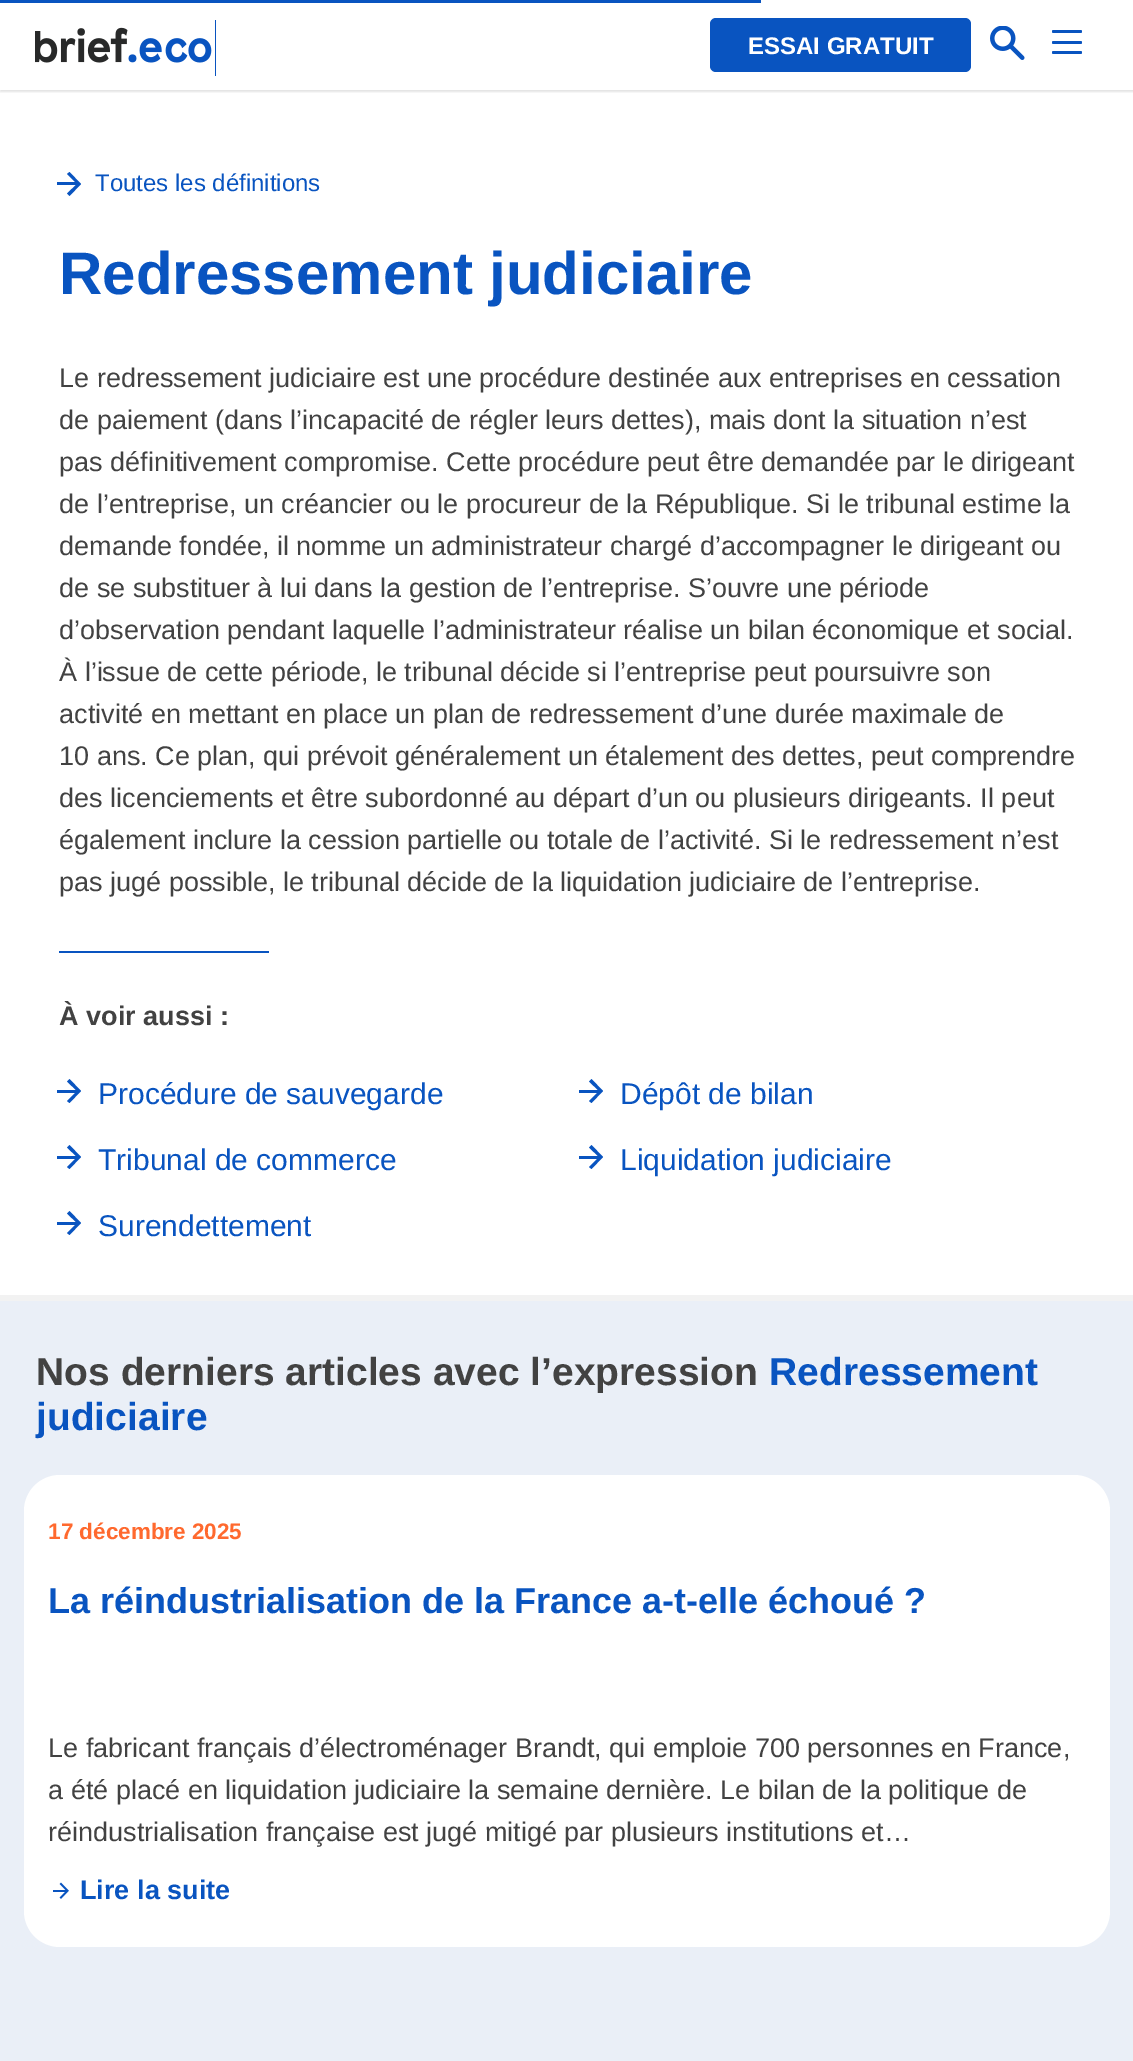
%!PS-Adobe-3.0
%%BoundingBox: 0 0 1133 2061
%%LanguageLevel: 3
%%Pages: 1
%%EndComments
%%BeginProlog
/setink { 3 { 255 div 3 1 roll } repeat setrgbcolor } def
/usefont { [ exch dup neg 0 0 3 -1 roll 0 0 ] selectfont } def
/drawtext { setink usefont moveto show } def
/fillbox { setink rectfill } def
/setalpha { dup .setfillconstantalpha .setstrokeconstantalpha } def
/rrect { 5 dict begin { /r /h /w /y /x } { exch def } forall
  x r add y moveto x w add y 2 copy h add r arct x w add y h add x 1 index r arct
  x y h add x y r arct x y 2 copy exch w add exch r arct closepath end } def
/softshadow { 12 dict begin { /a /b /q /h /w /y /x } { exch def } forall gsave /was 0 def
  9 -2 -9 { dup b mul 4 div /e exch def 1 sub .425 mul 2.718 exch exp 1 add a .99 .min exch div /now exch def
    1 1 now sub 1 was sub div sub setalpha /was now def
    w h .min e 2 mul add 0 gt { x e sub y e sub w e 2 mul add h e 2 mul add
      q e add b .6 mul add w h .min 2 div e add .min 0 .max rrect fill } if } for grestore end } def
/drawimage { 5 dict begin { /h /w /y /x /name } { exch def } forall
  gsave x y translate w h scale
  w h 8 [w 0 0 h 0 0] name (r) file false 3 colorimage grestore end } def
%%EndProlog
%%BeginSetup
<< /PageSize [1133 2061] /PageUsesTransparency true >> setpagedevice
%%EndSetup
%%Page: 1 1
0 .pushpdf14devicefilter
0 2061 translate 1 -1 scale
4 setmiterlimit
0 0 1133 2061 234 239 247 fillbox
0 0 1133 1295 255 255 255 fillbox
gsave
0 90 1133 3 rectclip
0 0 0 setink
0 2 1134 90 0 1 0.11 softshadow
grestore
0 0 761 3 9 84 192 fillbox
(assets/img1.rgb) 35 20 181 56 drawimage
710 18 261 54 6 rrect fill
(ESSAI GRATUIT) 748 54 /LiberationSans-Bold 24 255 255 255 drawtext
(assets/img2.rgb) 990 26 35 34 drawimage
9 84 192 setink
1052 30 30 3 1.5 rrect fill
1052 41 30 3 1.5 rrect fill
1052 51 30 3 1.5 rrect fill
57 182 21 3 9 84 192 fillbox
81 184 moveto 69.5 196 lineto 67 193.5 lineto 77 184 lineto 67 174 lineto 69.5 172 lineto closepath eofill
(Toutes les définitions) 95 191 /LiberationSans-Regular 24 9 84 192 drawtext
(Redressement judiciaire) 59 294 /LiberationSans-Bold 60 9 84 192 drawtext
(Le redressement judiciaire est une procédure destinée aux entreprises en cessation) 59 387 /LiberationSans-Regular 27 66 66 66 drawtext
(de paiement \(dans l’incapacité de régler leurs dettes\), mais dont la situation n’est) 59 429 /LiberationSans-Regular 27 66 66 66 drawtext
(pas définitivement compromise. Cette procédure peut être demandée par le dirigeant) 59 471 /LiberationSans-Regular 27 66 66 66 drawtext
(de l’entreprise, un créancier ou le procureur de la République. Si le tribunal estime la) 59 513 /LiberationSans-Regular 27 66 66 66 drawtext
(demande fondée, il nomme un administrateur chargé d’accompagner le dirigeant ou) 59 555 /LiberationSans-Regular 27 66 66 66 drawtext
(de se substituer à lui dans la gestion de l’entreprise. S’ouvre une période) 59 597 /LiberationSans-Regular 27 66 66 66 drawtext
(d’observation pendant laquelle l’administrateur réalise un bilan économique et social.) 59 639 /LiberationSans-Regular 27 66 66 66 drawtext
(À l’issue de cette période, le tribunal décide si l’entreprise peut poursuivre son) 59 681 /LiberationSans-Regular 27 66 66 66 drawtext
(activité en mettant en place un plan de redressement d’une durée maximale de) 59 723 /LiberationSans-Regular 27 66 66 66 drawtext
(10 ans. Ce plan, qui prévoit généralement un étalement des dettes, peut comprendre) 59 765 /LiberationSans-Regular 27 66 66 66 drawtext
(des licenciements et être subordonné au départ d’un ou plusieurs dirigeants. Il peut) 59 807 /LiberationSans-Regular 27 66 66 66 drawtext
(également inclure la cession partielle ou totale de l’activité. Si le redressement n’est) 59 849 /LiberationSans-Regular 27 66 66 66 drawtext
(pas jugé possible, le tribunal décide de la liquidation judiciaire de l’entreprise.) 59 891 /LiberationSans-Regular 27 66 66 66 drawtext
59 951 210 2 9 84 192 fillbox
(À voir aussi :) 59 1025 /LiberationSans-Bold 27 66 66 66 drawtext
57 1090 21 3 9 84 192 fillbox
81 1091 moveto 69.5 1103 lineto 67 1101 lineto 77 1091 lineto 67 1081.5 lineto 69.5 1079 lineto closepath eofill
(Procédure de sauvegarde) 98 1104 /LiberationSans-Regular 30 9 84 192 drawtext
579 1090 21 3 9 84 192 fillbox
603 1091 moveto 591.5 1103 lineto 589 1101 lineto 599 1091 lineto 589 1081.5 lineto 591.5 1079 lineto closepath eofill
(Dépôt de bilan) 620 1104 /LiberationSans-Regular 30 9 84 192 drawtext
57 1156 21 3 9 84 192 fillbox
81 1157 moveto 69.5 1169 lineto 67 1167 lineto 77 1157 lineto 67 1147.5 lineto 69.5 1145 lineto closepath eofill
(Tribunal de commerce) 98 1170 /LiberationSans-Regular 30 9 84 192 drawtext
579 1156 21 3 9 84 192 fillbox
603 1157 moveto 591.5 1169 lineto 589 1167 lineto 599 1157 lineto 589 1147.5 lineto 591.5 1145 lineto closepath eofill
(Liquidation judiciaire) 620 1170 /LiberationSans-Regular 30 9 84 192 drawtext
57 1222 21 3 9 84 192 fillbox
81 1223 moveto 69.5 1235 lineto 67 1233 lineto 77 1223 lineto 67 1213.5 lineto 69.5 1211 lineto closepath eofill
(Surendettement) 98 1236 /LiberationSans-Regular 30 9 84 192 drawtext
0 1295 1133 6 242 242 242 fillbox
(Nos derniers articles avec l’expression) 36 1385 /LiberationSans-Bold 39 66 66 66 drawtext
(Redressement) 769 1385 /LiberationSans-Bold 39 9 84 192 drawtext
(judiciaire) 36 1430 /LiberationSans-Bold 39 9 84 192 drawtext
255 255 255 setink
24 1475 1086 472 36 rrect fill
(17 décembre 2025) 48 1539 /LiberationSans-Bold 22.5 255 105 46 drawtext
(La réindustrialisation de la France a-t-elle échoué ?) 48 1613 /LiberationSans-Bold 36 9 84 192 drawtext
(Le fabricant français d’électroménager Brandt, qui emploie 700 personnes en France,) 48 1757 /LiberationSans-Regular 27 66 66 66 drawtext
(a été placé en liquidation judiciaire la semaine dernière. Le bilan de la politique de) 48 1799 /LiberationSans-Regular 27 66 66 66 drawtext
(réindustrialisation française est jugé mitigé par plusieurs institutions et…) 48 1841 /LiberationSans-Regular 27 66 66 66 drawtext
(assets/img3.rgb) 53 1882 16 17 drawimage
(Lire la suite) 80 1899 /LiberationSans-Bold 27 9 84 192 drawtext
.poppdf14devicefilter showpage
%%EOF
